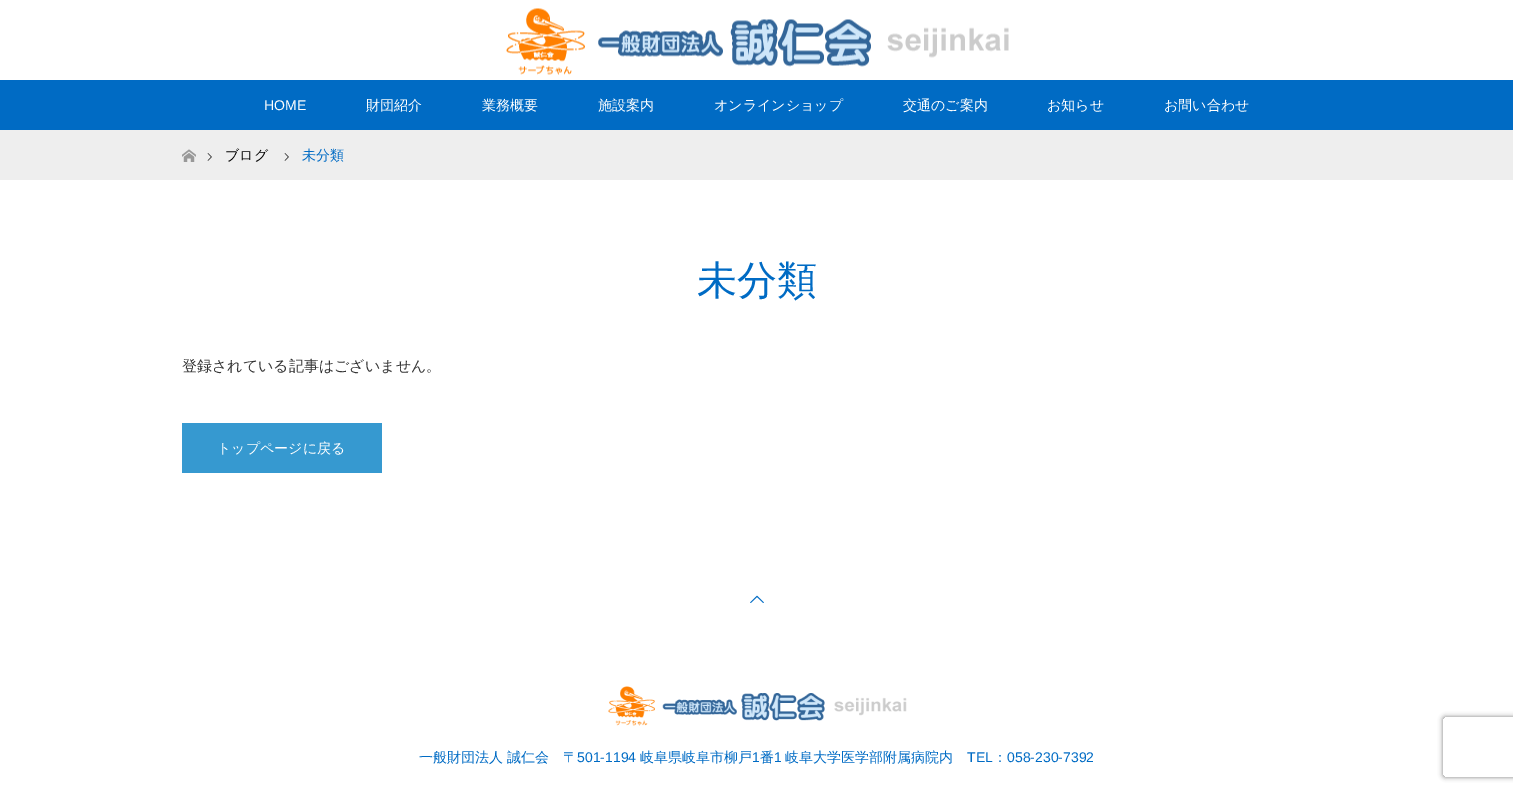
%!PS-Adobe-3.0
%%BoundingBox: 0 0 1513 791
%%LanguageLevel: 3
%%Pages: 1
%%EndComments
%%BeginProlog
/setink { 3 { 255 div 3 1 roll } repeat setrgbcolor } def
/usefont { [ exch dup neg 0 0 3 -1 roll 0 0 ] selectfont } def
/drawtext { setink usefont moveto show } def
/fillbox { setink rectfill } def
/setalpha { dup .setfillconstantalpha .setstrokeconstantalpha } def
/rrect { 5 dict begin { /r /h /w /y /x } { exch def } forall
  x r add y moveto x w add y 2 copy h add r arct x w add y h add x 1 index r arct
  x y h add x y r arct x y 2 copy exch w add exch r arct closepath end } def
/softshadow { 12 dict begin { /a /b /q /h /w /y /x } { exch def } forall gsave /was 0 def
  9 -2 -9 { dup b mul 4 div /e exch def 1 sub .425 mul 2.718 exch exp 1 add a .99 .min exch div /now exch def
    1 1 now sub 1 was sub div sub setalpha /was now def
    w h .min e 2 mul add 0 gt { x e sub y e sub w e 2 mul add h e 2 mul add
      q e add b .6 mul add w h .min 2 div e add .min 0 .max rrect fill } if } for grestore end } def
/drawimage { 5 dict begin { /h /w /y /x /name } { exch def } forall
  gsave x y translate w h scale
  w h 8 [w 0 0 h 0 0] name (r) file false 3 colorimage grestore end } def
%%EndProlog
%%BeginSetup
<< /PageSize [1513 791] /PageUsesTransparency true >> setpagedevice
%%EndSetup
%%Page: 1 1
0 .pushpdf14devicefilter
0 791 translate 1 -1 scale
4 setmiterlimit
0 0 1513 791 255 255 255 fillbox
(assets/img1.rgb) 506 8 503 67 drawimage
0 80 1513 50 0 107 196 fillbox
(HOME) 264 110 /LiberationSans-Regular 14 255 255 255 drawtext
(財団紹介) 366 110 /WenQuanYiZenHei-Medium 14 255 255 255 drawtext
(業務概要) 482 110 /WenQuanYiZenHei-Medium 14 255 255 255 drawtext
(施設案内) 598 110 /WenQuanYiZenHei-Medium 14 255 255 255 drawtext
(オンラインショップ) 714 110 /WenQuanYiZenHei-Medium 14 255 255 255 drawtext
(交通のご案内) 903 110 /WenQuanYiZenHei-Medium 14 255 255 255 drawtext
(お知らせ) 1047 110 /WenQuanYiZenHei-Medium 14 255 255 255 drawtext
(お問い合わせ) 1164 110 /WenQuanYiZenHei-Medium 14 255 255 255 drawtext
0 130 1513 50 238 238 238 fillbox
(assets/img2.rgb) 182 149 14 13 drawimage
(assets/img3.rgb) 207 153 5 8 drawimage
(ブログ) 225 160 /WenQuanYiZenHei-Medium 14 0 0 0 drawtext
(assets/img3.rgb) 284 153 5 8 drawimage
(未分類) 302 160 /WenQuanYiZenHei-Medium 14 0 107 196 drawtext
(未分類) 697 294 /WenQuanYiZenHei-Medium 40 0 107 196 drawtext
(登録されている記事はございません。) 182 371 /WenQuanYiZenHei-Medium 15 51 51 51 drawtext
182 423 200 50 54 153 208 fillbox
(トップページに戻る) 217 453 /WenQuanYiZenHei-Medium 14 255 255 255 drawtext
(assets/img4.rgb) 750 595 14 8 drawimage
(assets/img5.rgb) 608 686 299 40 drawimage
(一般財団法人 誠仁会) 419 762 /WenQuanYiZenHei-Medium 14 0 107 196 drawtext
(〒) 563 762 /WenQuanYiZenHei-Medium 14 0 107 196 drawtext
(501-1194) 577 762 /LiberationSans-Regular 14 0 107 196 drawtext
(岐阜県岐阜市柳戸) 640 762 /WenQuanYiZenHei-Medium 14 0 107 196 drawtext
(1) 752 762 /LiberationSans-Regular 14 0 107 196 drawtext
(番) 760 762 /WenQuanYiZenHei-Medium 14 0 107 196 drawtext
(1) 774 762 /LiberationSans-Regular 14 0 107 196 drawtext
(岐阜大学医学部附属病院内) 785 762 /WenQuanYiZenHei-Medium 14 0 107 196 drawtext
(TEL) 967 762 /LiberationSans-Regular 14 0 107 196 drawtext
(：) 993 762 /WenQuanYiZenHei-Medium 14 0 107 196 drawtext
(058-230-7392) 1007 762 /LiberationSans-Regular 14 0 107 196 drawtext
gsave
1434 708 moveto 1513 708 lineto 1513 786 lineto 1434 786 lineto closepath 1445 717 moveto 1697 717 lineto 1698 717 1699 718 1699 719 curveto 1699 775 lineto 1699 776 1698 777 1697 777 curveto 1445 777 lineto 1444 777 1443 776 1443 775 curveto 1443 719 lineto 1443 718 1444 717 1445 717 curveto closepath eoclip newpath
128 128 128 setink
1443 717 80 60 2 2.5 1 softshadow
grestore
.poppdf14devicefilter showpage
%%EOF
